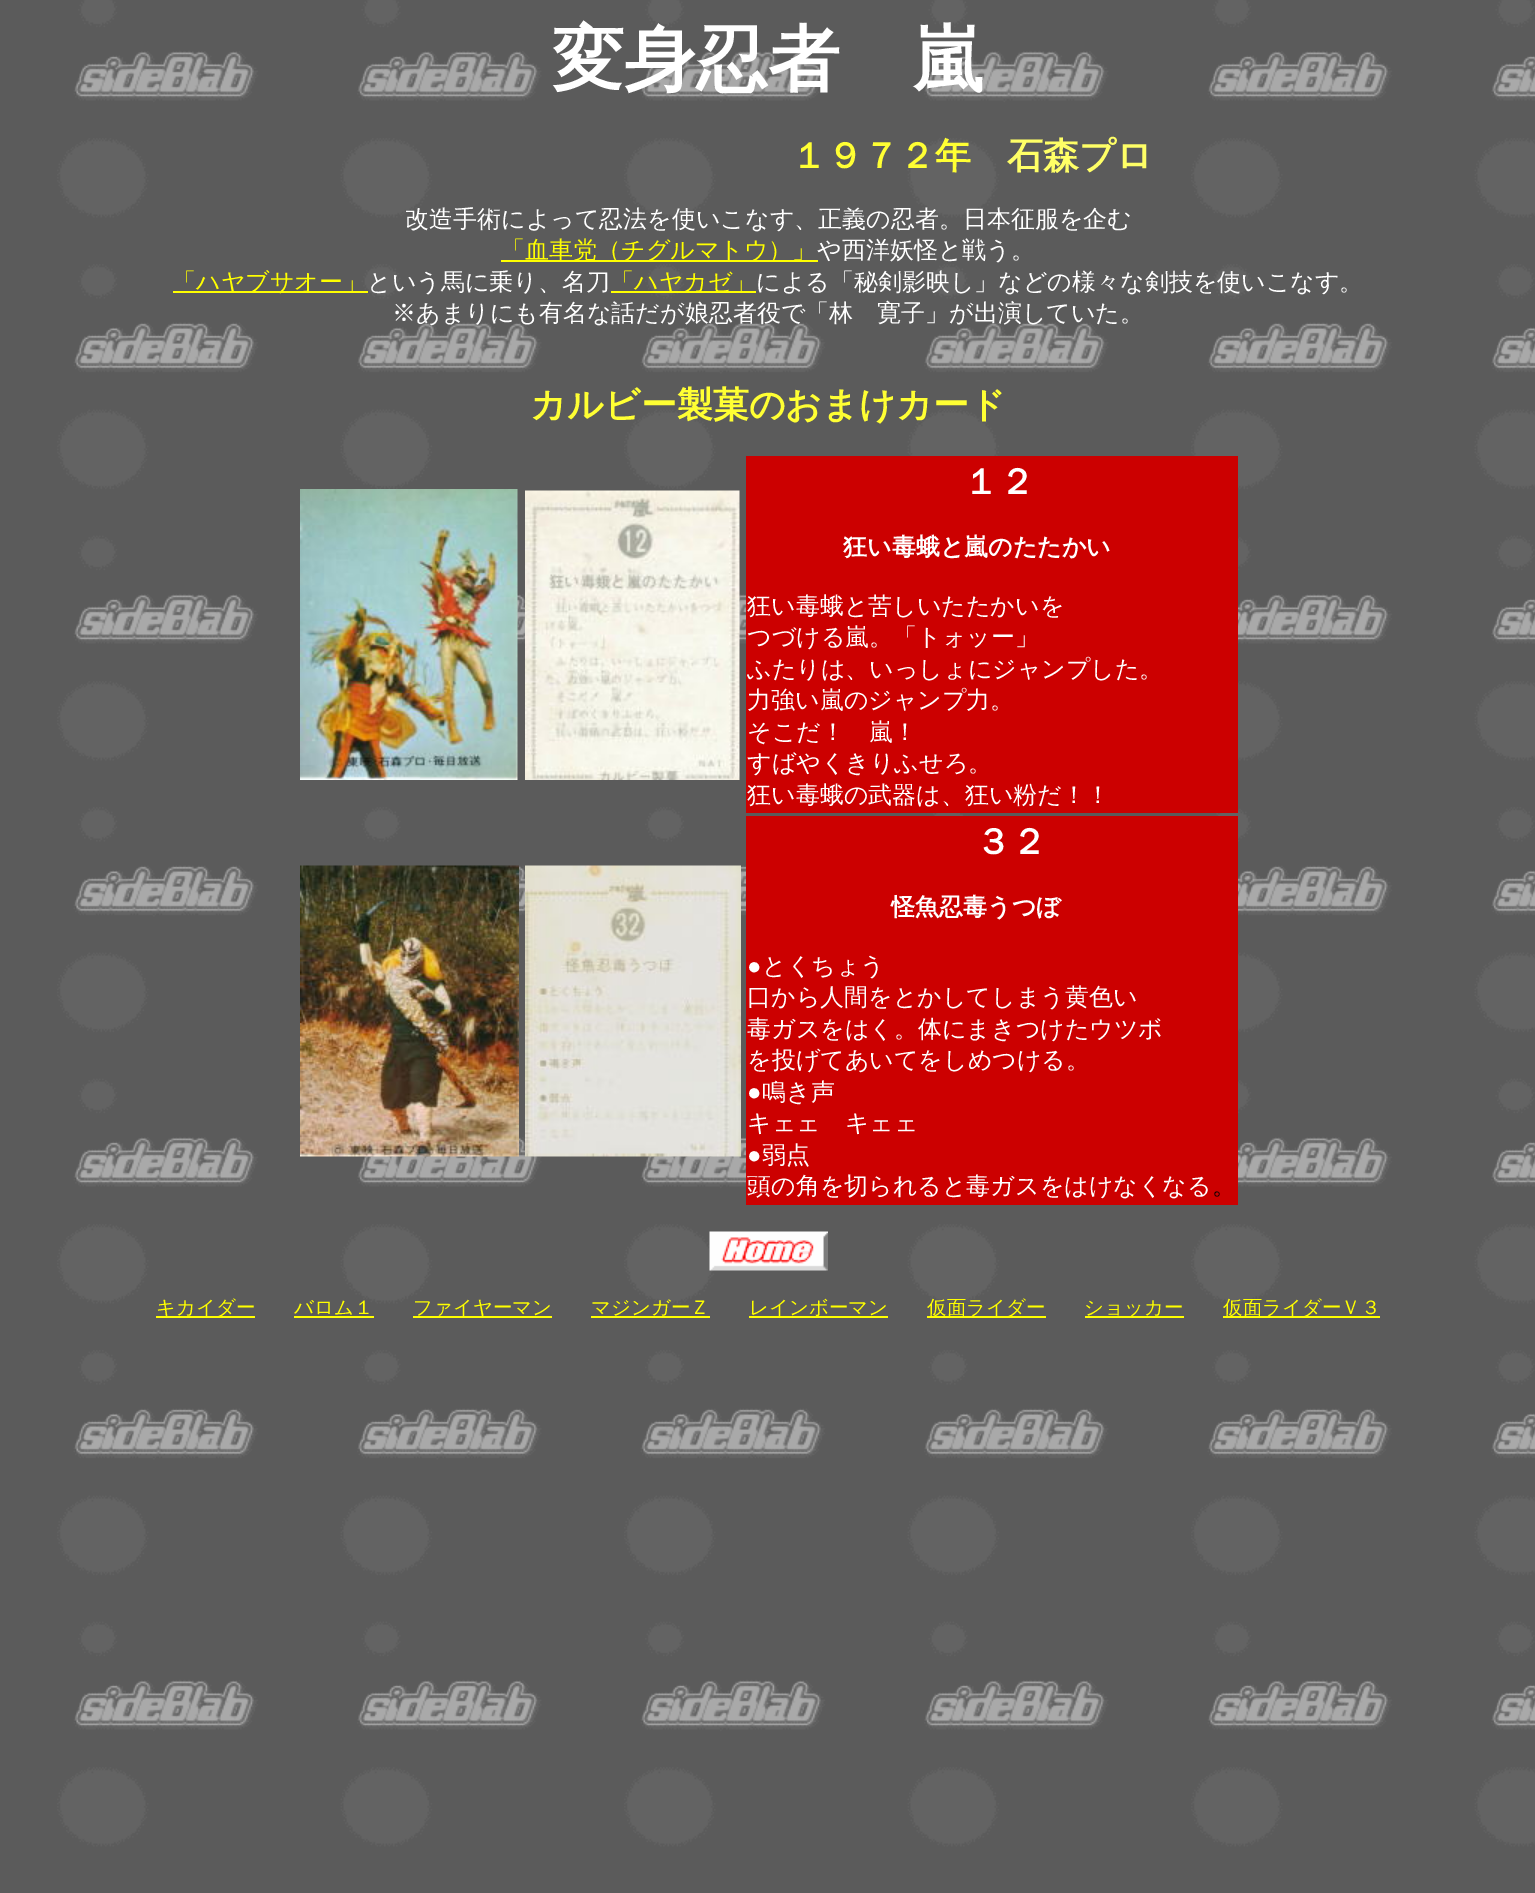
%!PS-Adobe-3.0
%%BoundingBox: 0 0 1535 1893
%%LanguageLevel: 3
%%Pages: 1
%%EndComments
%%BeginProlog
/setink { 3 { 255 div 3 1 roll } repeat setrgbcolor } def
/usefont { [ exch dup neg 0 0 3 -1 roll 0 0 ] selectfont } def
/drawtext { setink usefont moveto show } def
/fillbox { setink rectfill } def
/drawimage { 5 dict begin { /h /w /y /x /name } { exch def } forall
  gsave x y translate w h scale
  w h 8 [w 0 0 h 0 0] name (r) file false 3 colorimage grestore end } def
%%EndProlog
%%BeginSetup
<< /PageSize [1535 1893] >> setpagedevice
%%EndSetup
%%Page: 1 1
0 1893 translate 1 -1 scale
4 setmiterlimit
0 0 1535 1893 255 255 255 fillbox
(assets/img1.rgb) 0 0 1535 1893 drawimage
(変身忍者　嵐) 552 84 /WenQuanYiZenHei-Bold 72 255 255 255 drawtext
(１９７２年) 791 168 /WenQuanYiZenHei-Bold 36 255 255 51 drawtext
(石森プロ) 1007 168 /WenQuanYiZenHei-Bold 36 255 255 102 drawtext
(改造手術によって忍法を使いこなす、正義の忍者。日本征服を企む) 405 227 /WenQuanYiZenHei-Medium 24 255 255 255 drawtext
501 260 317 2 255 255 0 fillbox
(「血車党（チグルマトウ）」) 501 258 /WenQuanYiZenHei-Medium 24 255 255 0 drawtext
(や西洋妖怪と戦う。) 817 258 /WenQuanYiZenHei-Medium 24 255 255 255 drawtext
173 291 195 2 255 255 0 fillbox
(「ハヤブサオー」) 172 290 /WenQuanYiZenHei-Medium 24 255 255 0 drawtext
(という馬に乗り、名刀) 367 290 /WenQuanYiZenHei-Medium 24 255 255 255 drawtext
611 291 145 2 255 255 0 fillbox
(「ハヤカゼ」) 610 290 /WenQuanYiZenHei-Medium 24 255 255 0 drawtext
(による「秘剣影映し」などの様々な剣技を使いこなす。) 756 290 /WenQuanYiZenHei-Medium 24 255 255 255 drawtext
(※あまりにも有名な話だが娘忍者役で「林　寛子」が出演していた。) 392 321 /WenQuanYiZenHei-Medium 24 255 255 255 drawtext
(カルビー製菓のおまけカード) 530 417 /WenQuanYiZenHei-Bold 36 255 255 51 drawtext
(assets/img2.rgb) 300 489 218 291 drawimage
(assets/img3.rgb) 525 490 215 290 drawimage
746 456 492 357 204 0 0 fillbox
(１２) 963 494 /WenQuanYiZenHei-Bold 36 255 255 255 drawtext
(狂い毒蛾と嵐のたたかい) 843 555 /WenQuanYiZenHei-Bold 24 255 255 255 drawtext
(狂い毒蛾と苦しいたたかいを) 747 614 /WenQuanYiZenHei-Medium 24 255 255 255 drawtext
(つづける嵐。「トォッー」) 747 645 /WenQuanYiZenHei-Medium 24 255 255 255 drawtext
(ふたりは、いっしょにジャンプした。) 747 677 /WenQuanYiZenHei-Medium 24 255 255 255 drawtext
(力強い嵐のジャンプ力。) 747 708 /WenQuanYiZenHei-Medium 24 255 255 255 drawtext
(そこだ！　嵐！) 747 740 /WenQuanYiZenHei-Medium 24 255 255 255 drawtext
(すばやくきりふせろ。) 747 771 /WenQuanYiZenHei-Medium 24 255 255 255 drawtext
(狂い毒蛾の武器は、狂い粉だ！！) 747 803 /WenQuanYiZenHei-Medium 24 255 255 255 drawtext
(assets/img4.rgb) 300 865 219 292 drawimage
(assets/img5.rgb) 525 865 216 292 drawimage
746 816 492 389 204 0 0 fillbox
(３２) 975 854 /WenQuanYiZenHei-Bold 36 255 255 255 drawtext
(怪魚忍毒うつぼ) 891 915 /WenQuanYiZenHei-Bold 24 255 255 255 drawtext
(●) 747 974 /LiberationSerif-Regular 24 255 255 255 drawtext
(とくちょう) 762 974 /WenQuanYiZenHei-Medium 24 255 255 255 drawtext
(口から人間をとかしてしまう黄色い) 747 1005 /WenQuanYiZenHei-Medium 24 255 255 255 drawtext
(毒ガスをはく。体にまきつけたウツボ) 747 1037 /WenQuanYiZenHei-Medium 24 255 255 255 drawtext
(を投げてあいてをしめつける。) 747 1068 /WenQuanYiZenHei-Medium 24 255 255 255 drawtext
(●) 747 1100 /LiberationSerif-Regular 24 255 255 255 drawtext
(鳴き声) 762 1100 /WenQuanYiZenHei-Medium 24 255 255 255 drawtext
(キェェ　キェェ) 747 1131 /WenQuanYiZenHei-Medium 24 255 255 255 drawtext
(●) 747 1163 /LiberationSerif-Regular 24 255 255 255 drawtext
(弱点) 762 1163 /WenQuanYiZenHei-Medium 24 255 255 255 drawtext
(頭の角を切られると毒ガスをはけなくなる) 747 1194 /WenQuanYiZenHei-Medium 24 255 255 255 drawtext
(。) 1212 1194 /WenQuanYiZenHei-Medium 24 0 0 0 drawtext
(assets/img6.rgb) 709 1231 119 40 drawimage
156 1316 99 2 255 255 0 fillbox
(キカイダー) 156 1314 /WenQuanYiZenHei-Medium 19.5 255 255 0 drawtext
(バロム１) 294 1314 /WenQuanYiZenHei-Medium 19.5 255 255 0 drawtext
294 1316 80 2 255 255 0 fillbox
413 1316 139 2 255 255 0 fillbox
(ファイヤーマン) 413 1314 /WenQuanYiZenHei-Medium 19.5 255 255 0 drawtext
(マジンガーＺ) 591 1314 /WenQuanYiZenHei-Medium 19.5 255 255 0 drawtext
591 1316 119 2 255 255 0 fillbox
749 1316 139 2 255 255 0 fillbox
(レインボーマン) 749 1314 /WenQuanYiZenHei-Medium 19.5 255 255 0 drawtext
927 1316 119 2 255 255 0 fillbox
(仮面ライダー) 927 1314 /WenQuanYiZenHei-Medium 19.5 255 255 0 drawtext
1085 1316 99 2 255 255 0 fillbox
(ショッカー) 1084 1314 /WenQuanYiZenHei-Medium 19.5 255 255 0 drawtext
1223 1316 157 2 255 255 0 fillbox
(仮面ライダーＶ３) 1223 1314 /WenQuanYiZenHei-Medium 19.5 255 255 0 drawtext
showpage
%%EOF
